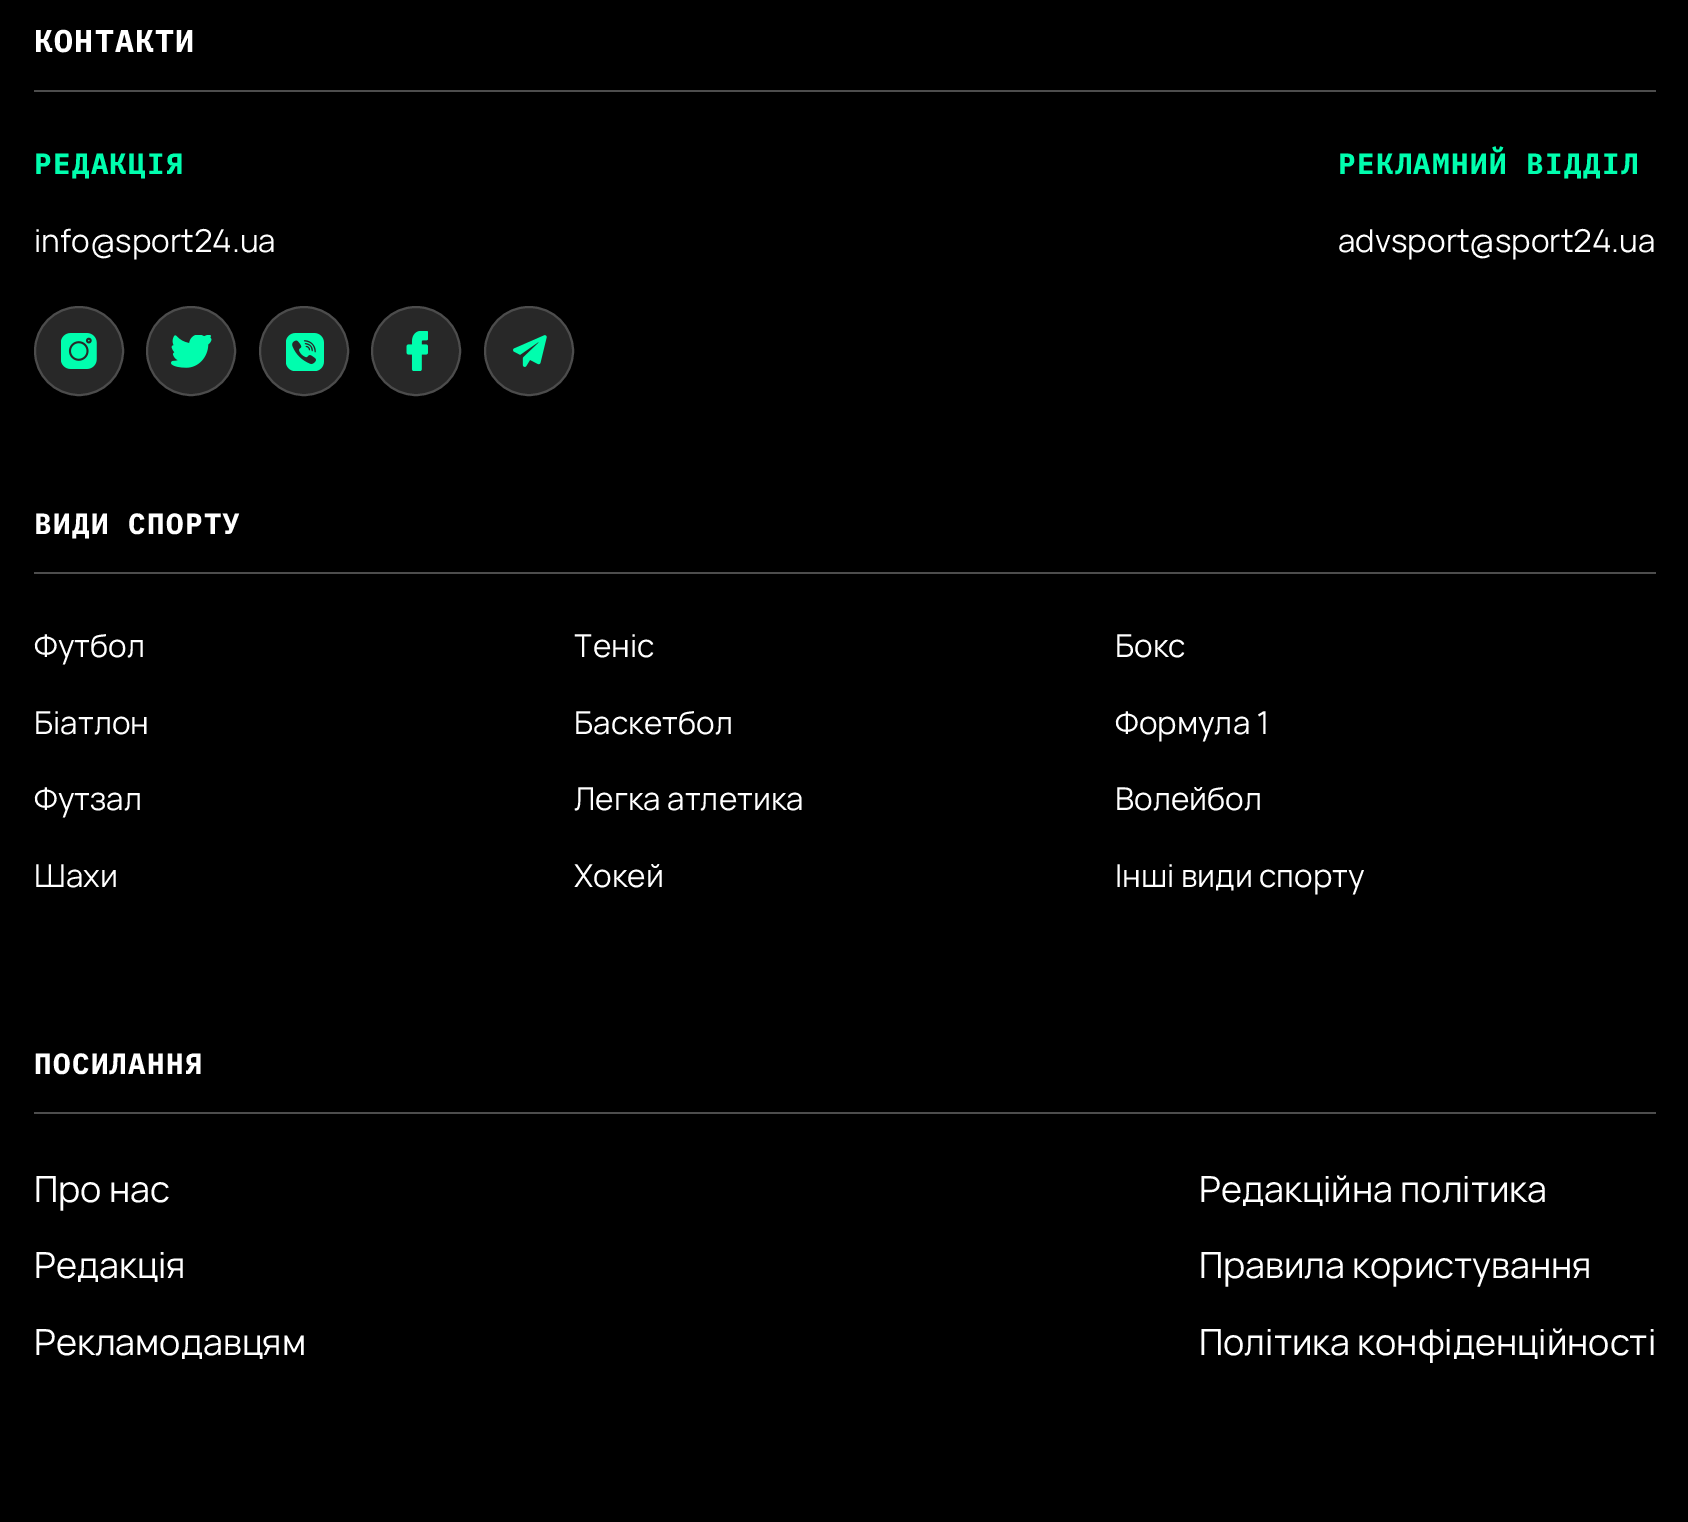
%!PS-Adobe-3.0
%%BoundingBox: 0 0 1688 1522
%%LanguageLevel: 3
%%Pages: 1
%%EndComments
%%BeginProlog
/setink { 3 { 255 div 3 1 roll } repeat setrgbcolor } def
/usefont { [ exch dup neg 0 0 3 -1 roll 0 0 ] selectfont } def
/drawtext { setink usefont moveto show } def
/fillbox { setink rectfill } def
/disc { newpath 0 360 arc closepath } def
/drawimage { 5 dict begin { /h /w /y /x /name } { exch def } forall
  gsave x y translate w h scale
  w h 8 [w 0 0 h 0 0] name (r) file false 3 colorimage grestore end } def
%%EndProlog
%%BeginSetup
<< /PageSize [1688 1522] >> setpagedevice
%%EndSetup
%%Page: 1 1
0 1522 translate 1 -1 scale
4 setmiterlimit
0 0 1688 1522 0 0 0 fillbox
34 90 1622 2 77 77 77 fillbox
/IBMPlexMono-Bold 31.5 usefont
255 255 255 setink
34 52 moveto 1.3 0 (КОНТАКТИ) ashow
/IBMPlexMono-Bold 29.25 usefont
0 254 174 setink
34 174 moveto 1.3 0 (РЕДАКЦІЯ) ashow
(info@sport24.ua) 34 252 /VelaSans-Regular 31.5 255 255 255 drawtext
/IBMPlexMono-Bold 29.25 usefont
0 254 174 setink
1338 174 moveto 1.3 0 (РЕКЛАМНИЙ ВІДДІЛ) ashow
(advsport@sport24.ua) 1338 252 /VelaSans-Regular 31.5 255 255 255 drawtext
40 40 40 setink
79 351 44 disc gsave fill grestore
76 76 76 setink
2 setlinewidth
stroke
(assets/img1.rgb) 61 333 36 36 drawimage
40 40 40 setink
191 351 44 disc gsave fill grestore
76 76 76 setink
stroke
(assets/img2.rgb) 171 335 41 33 drawimage
40 40 40 setink
304 351 44 disc gsave fill grestore
76 76 76 setink
stroke
(assets/img3.rgb) 286 333 38 38 drawimage
40 40 40 setink
416 351 44 disc gsave fill grestore
76 76 76 setink
stroke
(assets/img4.rgb) 406 331 22 40 drawimage
40 40 40 setink
529 351 44 disc gsave fill grestore
76 76 76 setink
stroke
(assets/img5.rgb) 513 335 34 32 drawimage
34 572 1622 2 77 77 77 fillbox
/IBMPlexMono-Bold 29.25 usefont
255 255 255 setink
34 534 moveto 1.3 0 (ВИДИ СПОРТУ) ashow
(Футбол) 34 657 /VelaSans-Regular 31.5 255 255 255 drawtext
(Теніс) 574 657 /VelaSans-Regular 31.5 255 255 255 drawtext
(Бокс) 1115 657 /VelaSans-Regular 31.5 255 255 255 drawtext
(Біатлон) 34 734 /VelaSans-Regular 31.5 255 255 255 drawtext
(Баскетбол) 574 734 /VelaSans-Regular 31.5 255 255 255 drawtext
(Формула 1) 1115 734 /VelaSans-Regular 31.5 255 255 255 drawtext
(Футзал) 34 810 /VelaSans-Regular 31.5 255 255 255 drawtext
(Легка атлетика) 574 810 /VelaSans-Regular 31.5 255 255 255 drawtext
(Волейбол) 1115 810 /VelaSans-Regular 31.5 255 255 255 drawtext
(Шахи) 34 887 /VelaSans-Regular 31.5 255 255 255 drawtext
(Хокей) 574 887 /VelaSans-Regular 31.5 255 255 255 drawtext
(Інші види спорту) 1115 887 /VelaSans-Regular 31.5 255 255 255 drawtext
34 1112 1622 2 77 77 77 fillbox
/IBMPlexMono-Bold 29.25 usefont
255 255 255 setink
34 1074 moveto 1.3 0 (ПОСИЛАННЯ) ashow
(Про нас) 34 1202 /VelaSans-Regular 36 255 255 255 drawtext
(Редакція) 34 1278 /VelaSans-Regular 36 255 255 255 drawtext
(Рекламодавцям) 34 1355 /VelaSans-Regular 36 255 255 255 drawtext
(Редакційна політика) 1199 1202 /VelaSans-Regular 36 255 255 255 drawtext
(Правила користування) 1199 1278 /VelaSans-Regular 36 255 255 255 drawtext
(Політика конфіденційності) 1199 1355 /VelaSans-Regular 36 255 255 255 drawtext
showpage
%%EOF
